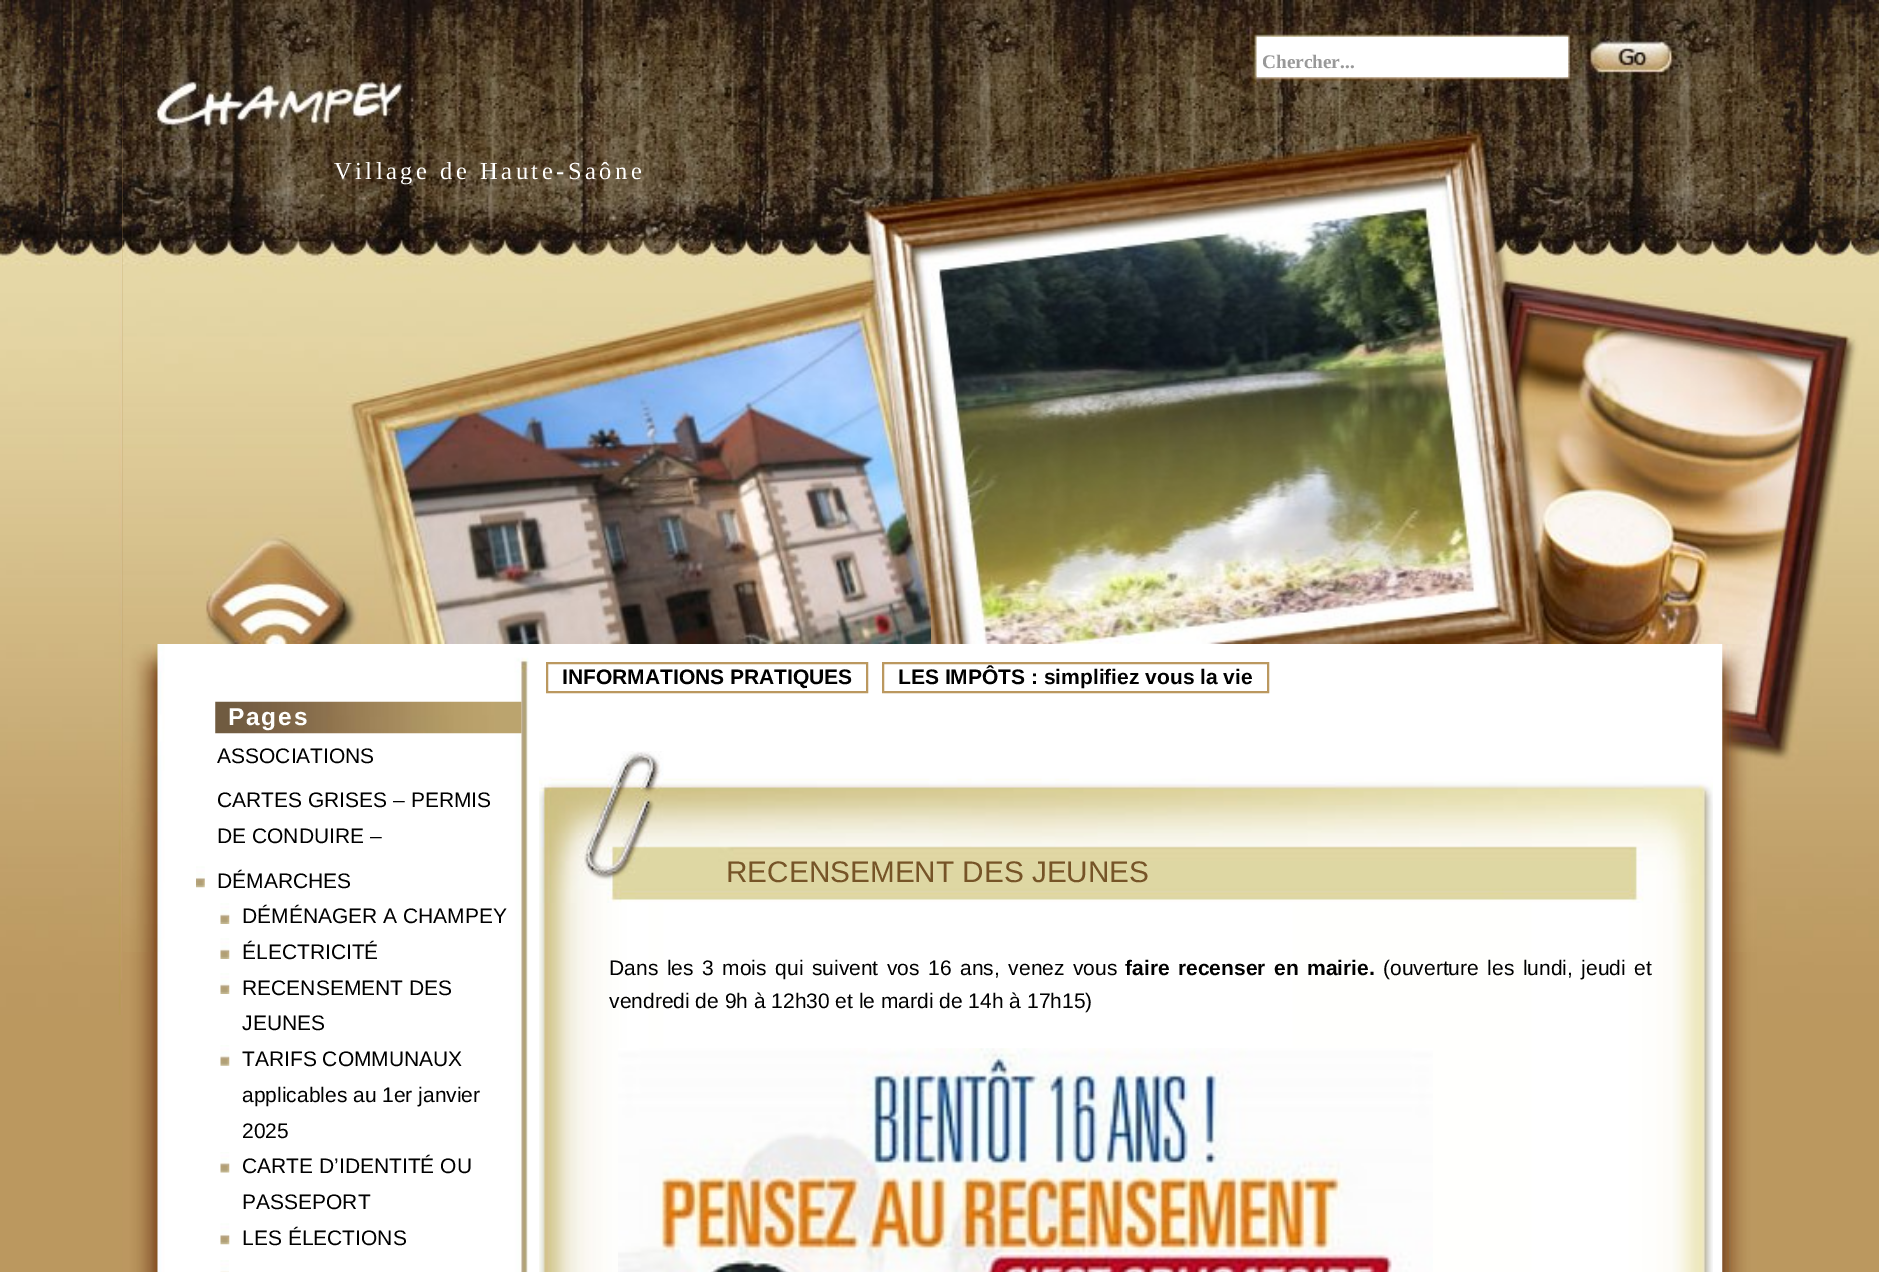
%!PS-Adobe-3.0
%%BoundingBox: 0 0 1879 1272
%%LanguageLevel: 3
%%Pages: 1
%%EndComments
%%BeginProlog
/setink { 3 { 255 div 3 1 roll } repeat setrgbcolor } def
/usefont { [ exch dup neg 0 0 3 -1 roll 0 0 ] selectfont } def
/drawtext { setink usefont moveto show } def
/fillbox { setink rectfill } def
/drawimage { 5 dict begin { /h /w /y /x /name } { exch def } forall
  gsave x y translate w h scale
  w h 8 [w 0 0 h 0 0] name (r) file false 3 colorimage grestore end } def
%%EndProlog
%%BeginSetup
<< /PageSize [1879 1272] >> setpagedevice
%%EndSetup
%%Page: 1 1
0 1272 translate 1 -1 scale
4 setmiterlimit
0 0 1879 1272 187 152 95 fillbox
(assets/img1.rgb) 0 0 1879 1015 drawimage
(assets/img2.rgb) 122 0 1635 1272 drawimage
(assets/img3.rgb) 122 0 1635 644 drawimage
(assets/img4.rgb) 122 0 1117 140 drawimage
1257 37 311 40 255 255 255 fillbox
(Chercher...) 1262 68 /LiberationSerif-Bold 19.25 153 153 153 drawtext
/LiberationSerif-Regular 24.5 usefont
255 255 254 setink
334 179 moveto 3.5 0 (Village de Haute-Saône) ashow
(assets/img5.rgb) 931 197 552 447 drawimage
(assets/img6.rgb) 122 644 1635 308 drawimage
187 152 95 setink
2 setlinewidth
547 663 320 29 rectstroke
(INFORMATIONS PRATIQUES) 562 684 /LiberationSans-Bold 21 0 0 0 drawtext
187 152 95 setink
883 663 385 29 rectstroke
(LES IMPÔTS : simplifiez vous la vie) 898 684 /LiberationSans-Bold 21 0 0 0 drawtext
(assets/img7.rgb) 215 701 307 33 drawimage
/LiberationSans-Bold 24.5 usefont
255 255 254 setink
228 725 moveto 1.75 0 (Pages) ashow
(ASSOCIATIONS) 217 763 /LiberationSans-Regular 21 0 0 0 drawtext
(CARTES GRISES – PERMIS) 217 807 /LiberationSans-Regular 21 0 0 0 drawtext
(DE CONDUIRE –) 217 843 /LiberationSans-Regular 21 0 0 0 drawtext
(assets/img8.rgb) 196 866 9 22 drawimage
(DÉMARCHES) 217 888 /LiberationSans-Regular 21 0 0 0 drawtext
(assets/img9.rgb) 220 903 10 21 drawimage
(DÉMÉNAGER A CHAMPEY) 242 923 /LiberationSans-Regular 21 0 0 0 drawtext
(assets/img9.rgb) 220 938 10 21 drawimage
(ÉLECTRICITÉ) 242 959 /LiberationSans-Regular 21 0 0 0 drawtext
(assets/img9.rgb) 220 973 10 21 drawimage
(RECENSEMENT DES) 242 995 /LiberationSans-Regular 21 0 0 0 drawtext
(JEUNES) 242 1030 /LiberationSans-Regular 21 0 0 0 drawtext
(assets/img10.rgb) 220 1045 10 21 drawimage
(TARIFS COMMUNAUX) 242 1066 /LiberationSans-Regular 21 0 0 0 drawtext
(applicables au 1er janvier) 242 1102 /LiberationSans-Regular 21 0 0 0 drawtext
(2025) 242 1138 /LiberationSans-Regular 21 0 0 0 drawtext
(assets/img11.rgb) 220 1152 10 21 drawimage
(CARTE D’IDENTITÉ OU) 242 1173 /LiberationSans-Regular 21 0 0 0 drawtext
(PASSEPORT) 242 1209 /LiberationSans-Regular 21 0 0 0 drawtext
(assets/img12.rgb) 220 1223 10 22 drawimage
(LES ÉLECTIONS) 242 1245 /LiberationSans-Regular 21 0 0 0 drawtext
(assets/img13.rgb) 220 1260 9 12 drawimage
1718 644 4 628 255 255 255 fillbox
(assets/img14.rgb) 539 903 1174 369 drawimage
(assets/img15.rgb) 539 751 1174 152 drawimage
(RECENSEMENT DES JEUNES) 726 882 /LiberationSans-Regular 29.75 118 84 39 drawtext
/LiberationSans-Regular 21 usefont
0 0 0 setink
609 975 moveto 2.75 0 32 (Dans les 3 mois qui suivent vos 16 ans, venez vous) widthshow
/LiberationSans-Bold 21 usefont
1125 975 moveto 2.75 0 32 (faire recenser en mairie.) widthshow
/LiberationSans-Regular 21 usefont
1383 975 moveto 2.75 0 32 (\(ouverture les lundi, jeudi et) widthshow
(vendredi de 9h à 12h30 et le mardi de 14h à 17h15\)) 609 1008 /LiberationSans-Regular 21 0 0 0 drawtext
(assets/img16.rgb) 618 1048 815 224 drawimage
showpage
%%EOF
